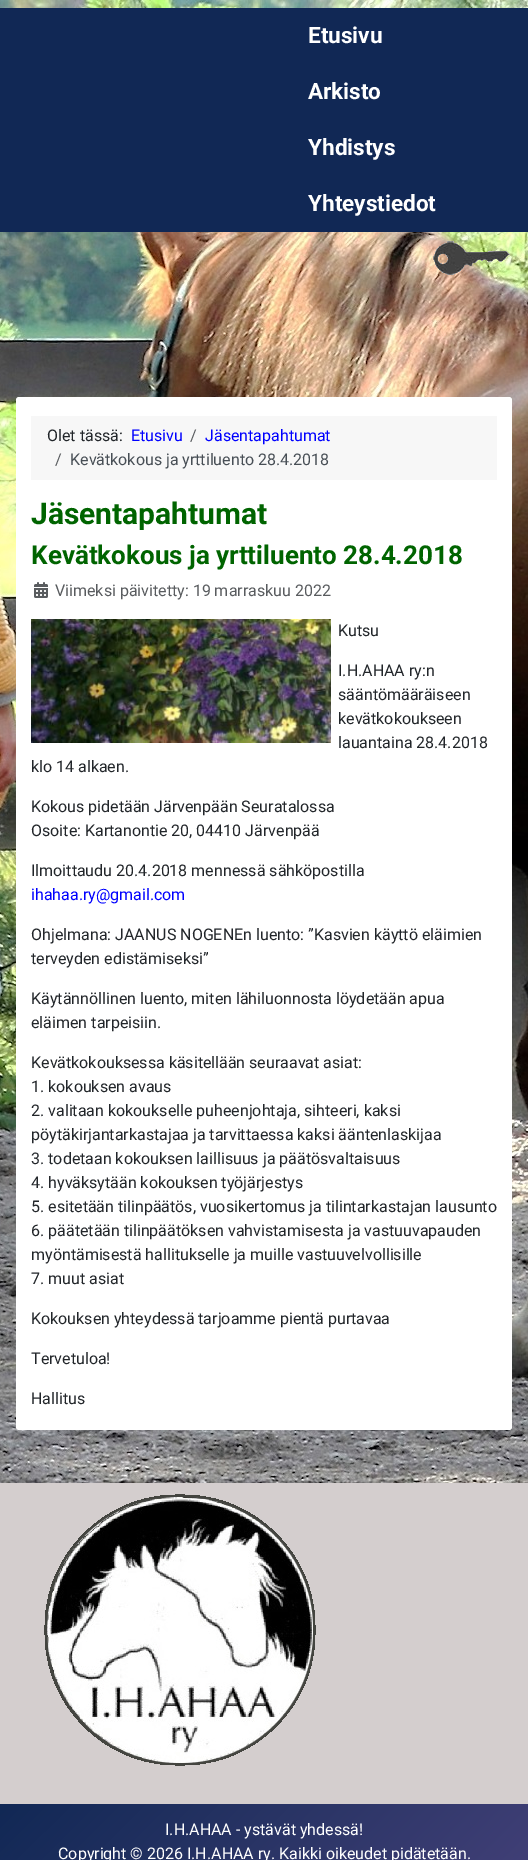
%!PS-Adobe-3.0
%%BoundingBox: 0 0 528 1860
%%LanguageLevel: 3
%%Pages: 1
%%EndComments
%%BeginProlog
/setink { 3 { 255 div 3 1 roll } repeat setrgbcolor } def
/usefont { [ exch dup neg 0 0 3 -1 roll 0 0 ] selectfont } def
/drawtext { setink usefont moveto show } def
/fillbox { setink rectfill } def
/rrect { 5 dict begin { /r /h /w /y /x } { exch def } forall
  x r add y moveto x w add y 2 copy h add r arct x w add y h add x 1 index r arct
  x y h add x y r arct x y 2 copy exch w add exch r arct closepath end } def
/drawimage { 5 dict begin { /h /w /y /x /name } { exch def } forall
  gsave x y translate w h scale
  w h 8 [w 0 0 h 0 0] name (r) file false 3 colorimage grestore end } def
%%EndProlog
%%BeginSetup
<< /PageSize [528 1860] >> setpagedevice
%%EndSetup
%%Page: 1 1
0 1860 translate 1 -1 scale
4 setmiterlimit
0 0 528 1860 212 206 206 fillbox
(assets/img1.rgb) 0 397 528 1086 drawimage
(assets/img2.rgb) 0 0 528 397 drawimage
0 8 528 224 17 40 85 fillbox
(Etusivu) 308 43 /Roboto-Bold 22.5 255 255 255 drawtext
(Arkisto) 308 99 /Roboto-Bold 22.5 255 255 255 drawtext
(Yhdistys) 308 155 /Roboto-Bold 22.5 255 255 255 drawtext
(Yhteystiedot) 308 211 /Roboto-Bold 22.5 255 255 255 drawtext
(assets/img3.rgb) 433 241 77 34 drawimage
16 397 496 1033 3 rrect fill
31 416 466 64 247 247 247 fillbox
(Olet tässä:) 47 441 /Roboto-Regular 16 34 38 42 drawtext
(Etusivu) 131 441 /Roboto-Regular 16 0 0 255 drawtext
(/) 190 441 /Roboto-Regular 16 89 92 95 drawtext
(Jäsentapahtumat) 205 441 /Roboto-Regular 16 0 0 255 drawtext
(/) 55 465 /Roboto-Regular 16 89 92 95 drawtext
(Kevätkokous ja yrttiluento 28.4.2018) 70 465 /Roboto-Regular 16 72 79 86 drawtext
(Jäsentapahtumat) 31 524 /Roboto-Bold 30 0 100 0 drawtext
(Kevätkokous ja yrttiluento 28.4.2018) 31 564 /Roboto-Bold 26 0 100 0 drawtext
(assets/img4.rgb) 34 582 14 16 drawimage
(Viimeksi päivitetty: 19 marraskuu 2022) 55 596 /Roboto-Regular 16 89 92 95 drawtext
(assets/img5.rgb) 31 619 300 124 drawimage
(Kutsu) 338 636 /Roboto-Regular 16 34 38 42 drawtext
(I.H.AHAA ry:n) 338 676 /Roboto-Regular 16 34 38 42 drawtext
(sääntömääräiseen) 338 700 /Roboto-Regular 16 34 38 42 drawtext
(kevätkokoukseen) 338 724 /Roboto-Regular 16 34 38 42 drawtext
(lauantaina 28.4.2018) 338 748 /Roboto-Regular 16 34 38 42 drawtext
(klo 14 alkaen.) 31 772 /Roboto-Regular 16 34 38 42 drawtext
(Kokous pidetään Järvenpään Seuratalossa) 31 812 /Roboto-Regular 16 34 38 42 drawtext
(Osoite: Kartanontie 20, 04410 Järvenpää) 31 836 /Roboto-Regular 16 34 38 42 drawtext
(Ilmoittaudu 20.4.2018 mennessä sähköpostilla) 31 876 /Roboto-Regular 16 34 38 42 drawtext
(ihahaa.ry@gmail.com) 31 900 /Roboto-Regular 16 0 0 255 drawtext
(Ohjelmana: JAANUS NOGENEn luento: ”Kasvien käyttö eläimien) 31 940 /Roboto-Regular 16 34 38 42 drawtext
(terveyden edistämiseksi”) 31 964 /Roboto-Regular 16 34 38 42 drawtext
(Käytännöllinen luento, miten lähiluonnosta löydetään apua) 31 1004 /Roboto-Regular 16 34 38 42 drawtext
(eläimen tarpeisiin.) 31 1028 /Roboto-Regular 16 34 38 42 drawtext
(Kevätkokouksessa käsitellään seuraavat asiat:) 31 1068 /Roboto-Regular 16 34 38 42 drawtext
(1. kokouksen avaus) 31 1092 /Roboto-Regular 16 34 38 42 drawtext
(2. valitaan kokoukselle puheenjohtaja, sihteeri, kaksi) 31 1116 /Roboto-Regular 16 34 38 42 drawtext
(pöytäkirjantarkastajaa ja tarvittaessa kaksi ääntenlaskijaa) 31 1140 /Roboto-Regular 16 34 38 42 drawtext
(3. todetaan kokouksen laillisuus ja päätösvaltaisuus) 31 1164 /Roboto-Regular 16 34 38 42 drawtext
(4. hyväksytään kokouksen työjärjestys) 31 1188 /Roboto-Regular 16 34 38 42 drawtext
(5. esitetään tilinpäätös, vuosikertomus ja tilintarkastajan lausunto) 31 1212 /Roboto-Regular 16 34 38 42 drawtext
(6. päätetään tilinpäätöksen vahvistamisesta ja vastuuvapauden) 31 1236 /Roboto-Regular 16 34 38 42 drawtext
(myöntämisestä hallitukselle ja muille vastuuvelvollisille) 31 1260 /Roboto-Regular 16 34 38 42 drawtext
(7. muut asiat) 31 1284 /Roboto-Regular 16 34 38 42 drawtext
(Kokouksen yhteydessä tarjoamme pientä purtavaa) 31 1324 /Roboto-Regular 16 34 38 42 drawtext
(Tervetuloa!) 31 1364 /Roboto-Regular 16 34 38 42 drawtext
(Hallitus) 31 1404 /Roboto-Regular 16 34 38 42 drawtext
(assets/img6.rgb) 44 1494 272 272 drawimage
gsave 0 1804 moveto 528 1804 lineto 528 1860 lineto 0 1860 lineto closepath clip newpath
<< /ShadingType 2 /ColorSpace /DeviceRGB /Coords [113 1691 415 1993] /Extend [true true] /Function << /FunctionType 2 /Domain [0 1] /C0 [0.067 0.157 0.333] /C1 [0.259 0.251 0.467] /N 1 >> >> shfill grestore
(I.H.AHAA - ystävät yhdessä!) 165 1835 /Roboto-Regular 16 255 255 255 drawtext
(Copyright © 2026 I.H.AHAA ry. Kaikki oikeudet pidätetään.) 58 1859 /Roboto-Regular 16 255 255 255 drawtext
showpage
%%EOF
